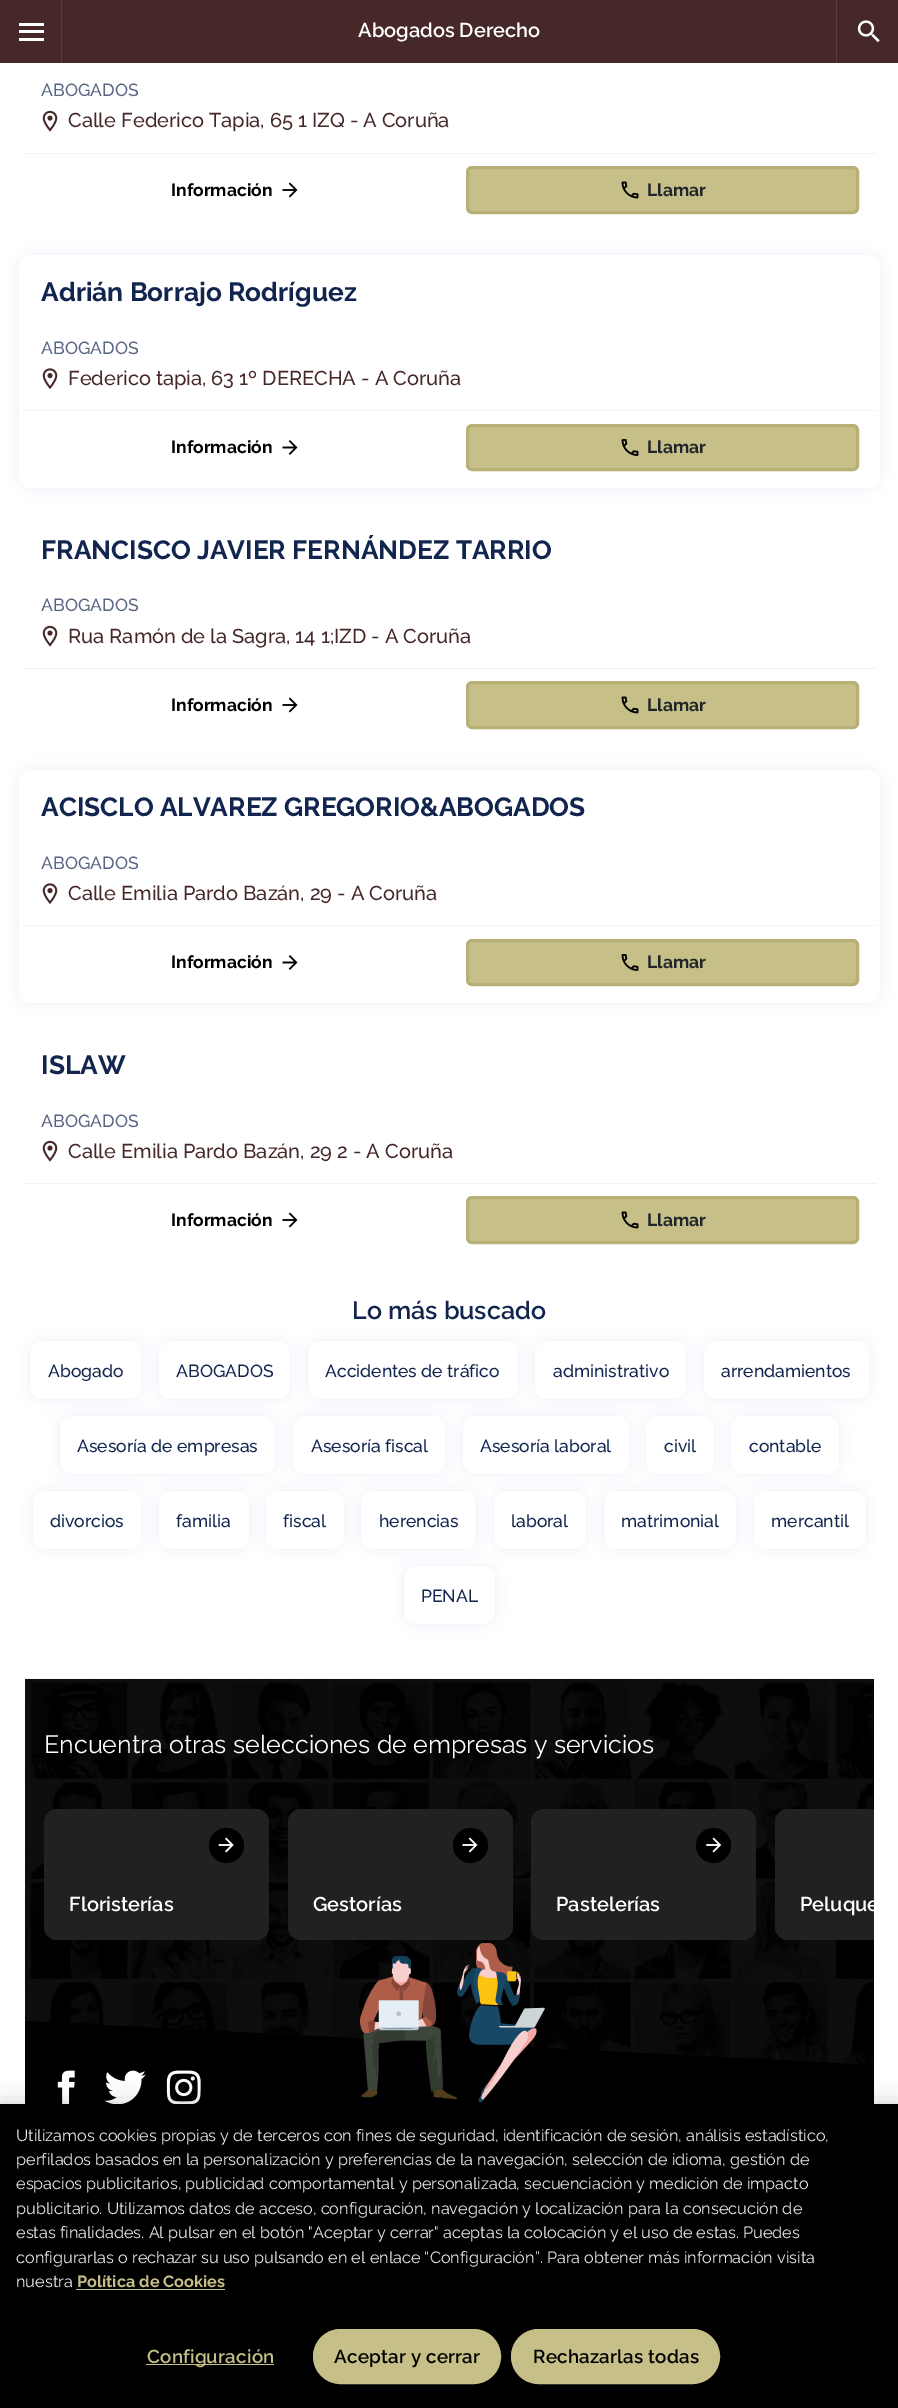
%!PS-Adobe-3.0
%%BoundingBox: 0 0 898 2408
%%LanguageLevel: 3
%%Pages: 1
%%EndComments
%%BeginProlog
/setink { 3 { 255 div 3 1 roll } repeat setrgbcolor } def
/usefont { [ exch dup neg 0 0 3 -1 roll 0 0 ] selectfont } def
/drawtext { setink usefont moveto show } def
/fillbox { setink rectfill } def
/setalpha { dup .setfillconstantalpha .setstrokeconstantalpha } def
/disc { newpath 0 360 arc closepath } def
/rrect { 5 dict begin { /r /h /w /y /x } { exch def } forall
  x r add y moveto x w add y 2 copy h add r arct x w add y h add x 1 index r arct
  x y h add x y r arct x y 2 copy exch w add exch r arct closepath end } def
/softshadow { 12 dict begin { /a /b /q /h /w /y /x } { exch def } forall gsave /was 0 def
  9 -2 -9 { dup b mul 4 div /e exch def 1 sub .425 mul 2.718 exch exp 1 add a .99 .min exch div /now exch def
    1 1 now sub 1 was sub div sub setalpha /was now def
    w h .min e 2 mul add 0 gt { x e sub y e sub w e 2 mul add h e 2 mul add
      q e add b .6 mul add w h .min 2 div e add .min 0 .max rrect fill } if } for grestore end } def
/drawimage { 5 dict begin { /h /w /y /x /name } { exch def } forall
  gsave x y translate w h scale
  w h 8 [w 0 0 h 0 0] name (r) file false 3 colorimage grestore end } def
%%EndProlog
%%BeginSetup
<< /PageSize [898 2408] /PageUsesTransparency true >> setpagedevice
%%EndSetup
%%Page: 1 1
0 .pushpdf14devicefilter
0 2408 translate 1 -1 scale
4 setmiterlimit
0 0 898 2408 255 255 255 fillbox
0 0 898 63 70 40 40 fillbox
61 0 1 63 89 62 62 fillbox
19 23 25 3 255 255 255 fillbox
19 30 25 3 255 255 255 fillbox
19 38 25 3 255 255 255 fillbox
(Abogados Derecho) 358 37 /Raleway-SemiBold 20 255 255 255 drawtext
836 0 1 63 89 62 62 fillbox
(assets/img1.rgb) 857 20 23 23 drawimage
(ABOGADOS) 41 96 /Raleway-Medium 17.5 88 102 132 drawtext
(assets/img2.rgb) 42 110 16 22 drawimage
(Calle Federico Tapia, 65 1 IZQ - A Coruña) 68 127 /Raleway-Medium 20 70 40 40 drawtext
23 153 853 1 242 242 242 fillbox
(Información) 171 196 /Raleway-Bold 17.5 0 0 0 drawtext
(assets/img3.rgb) 282 182 16 16 drawimage
198 191 135 setink
467.5 167.5 390 45 4.5 rrect gsave fill grestore
183 175 118 setink
3 setlinewidth
stroke
(assets/img4.rgb) 621 181 18 18 drawimage
(Llamar) 647 196 /Raleway-Bold 17.5 33 37 41 drawtext
55 99 138 setink
19 255 861 233 13 6 0.1 softshadow
255 255 255 setink
19 255 861 233 13 rrect fill
(Adrián Borrajo Rodríguez) 41 301 /Raleway-Bold 26.25 17 37 79 drawtext
(ABOGADOS) 41 354 /Raleway-Medium 17.5 88 102 132 drawtext
(assets/img5.rgb) 42 368 16 21 drawimage
(Federico tapia, 63 1º DERECHA - A Coruña) 68 385 /Raleway-Medium 20 70 40 40 drawtext
23 410 853 1 242 242 242 fillbox
(Información) 171 453 /Raleway-Bold 17.5 0 0 0 drawtext
(assets/img6.rgb) 282 440 16 15 drawimage
198 191 135 setink
467.5 425.5 390 44 4.5 rrect gsave fill grestore
183 175 118 setink
stroke
(assets/img7.rgb) 621 439 18 17 drawimage
(Llamar) 647 453 /Raleway-Bold 17.5 33 37 41 drawtext
(FRANCISCO JAVIER FERNÁNDEZ TARRIO) 41 559 /Raleway-Bold 26.25 17 37 79 drawtext
(ABOGADOS) 41 611 /Raleway-Medium 17.5 88 102 132 drawtext
(assets/img2.rgb) 42 625 16 22 drawimage
(Rua Ramón de la Sagra, 14 1;IZD - A Coruña) 68 643 /Raleway-Medium 20 70 40 40 drawtext
23 668 853 1 242 242 242 fillbox
(Información) 171 711 /Raleway-Bold 17.5 0 0 0 drawtext
(assets/img3.rgb) 282 697 16 16 drawimage
198 191 135 setink
467.5 682.5 390 45 4.5 rrect gsave fill grestore
183 175 118 setink
stroke
(assets/img4.rgb) 621 696 18 18 drawimage
(Llamar) 647 711 /Raleway-Bold 17.5 33 37 41 drawtext
55 99 138 setink
19 770 861 233 13 6 0.1 softshadow
255 255 255 setink
19 770 861 233 13 rrect fill
(ACISCLO ALVAREZ GREGORIO&ABOGADOS) 41 816 /Raleway-Bold 26.25 17 37 79 drawtext
(ABOGADOS) 41 869 /Raleway-Medium 17.5 88 102 132 drawtext
(assets/img5.rgb) 42 883 16 21 drawimage
(Calle Emilia Pardo Bazán, 29 - A Coruña) 68 900 /Raleway-Medium 20 70 40 40 drawtext
23 925 853 1 242 242 242 fillbox
(Información) 171 968 /Raleway-Bold 17.5 0 0 0 drawtext
(assets/img6.rgb) 282 955 16 15 drawimage
198 191 135 setink
467.5 940.5 390 44 4.5 rrect gsave fill grestore
183 175 118 setink
stroke
(assets/img7.rgb) 621 954 18 17 drawimage
(Llamar) 647 968 /Raleway-Bold 17.5 33 37 41 drawtext
(ISLAW) 41 1074 /Raleway-Bold 26.25 17 37 79 drawtext
(ABOGADOS) 41 1127 /Raleway-Medium 17.5 88 102 132 drawtext
(assets/img2.rgb) 42 1140 16 22 drawimage
(Calle Emilia Pardo Bazán, 29 2 - A Coruña) 68 1158 /Raleway-Medium 20 70 40 40 drawtext
23 1183 853 1 242 242 242 fillbox
(Información) 171 1226 /Raleway-Bold 17.5 0 0 0 drawtext
(assets/img3.rgb) 282 1212 16 16 drawimage
198 191 135 setink
467.5 1197.5 390 45 4.5 rrect gsave fill grestore
183 175 118 setink
stroke
(assets/img4.rgb) 621 1211 18 18 drawimage
(Llamar) 647 1226 /Raleway-Bold 17.5 33 37 41 drawtext
(Lo más buscado) 352 1319 /Raleway-SemiBold 25 17 37 79 drawtext
55 99 138 setink
30 1341 111 58 13 6 0.1 softshadow
255 255 255 setink
30 1341 111 58 13 rrect fill
(Abogado) 48 1377 /Raleway-Medium 17.5 17 37 79 drawtext
55 99 138 setink
159 1341 131 58 13 6 0.1 softshadow
255 255 255 setink
159 1341 131 58 13 rrect fill
(ABOGADOS) 176 1377 /Raleway-Medium 17.5 17 37 79 drawtext
55 99 138 setink
308 1341 210 58 13 6 0.1 softshadow
255 255 255 setink
308 1341 210 58 13 rrect fill
(Accidentes de tráfico) 325 1377 /Raleway-Medium 17.5 17 37 79 drawtext
55 99 138 setink
535 1341 151 58 13 6 0.1 softshadow
255 255 255 setink
535 1341 151 58 13 rrect fill
(administrativo) 553 1377 /Raleway-Medium 17.5 17 37 79 drawtext
55 99 138 setink
704 1341 165 58 13 6 0.1 softshadow
255 255 255 setink
704 1341 165 58 13 rrect fill
(arrendamientos) 721 1377 /Raleway-Medium 17.5 17 37 79 drawtext
55 99 138 setink
60 1416 215 58 13 6 0.1 softshadow
255 255 255 setink
60 1416 215 58 13 rrect fill
(Asesoría de empresas) 77 1452 /Raleway-Medium 17.5 17 37 79 drawtext
55 99 138 setink
293 1416 152 58 13 6 0.1 softshadow
255 255 255 setink
293 1416 152 58 13 rrect fill
(Asesoría fiscal) 311 1452 /Raleway-Medium 17.5 17 37 79 drawtext
55 99 138 setink
463 1416 166 58 13 6 0.1 softshadow
255 255 255 setink
463 1416 166 58 13 rrect fill
(Asesoría laboral) 480 1452 /Raleway-Medium 17.5 17 37 79 drawtext
55 99 138 setink
646 1416 68 58 13 6 0.1 softshadow
255 255 255 setink
646 1416 68 58 13 rrect fill
(civil) 664 1452 /Raleway-Medium 17.5 17 37 79 drawtext
55 99 138 setink
731 1416 108 58 13 6 0.1 softshadow
255 255 255 setink
731 1416 108 58 13 rrect fill
(contable) 749 1452 /Raleway-Medium 17.5 17 37 79 drawtext
55 99 138 setink
33 1491 108 58 13 6 0.1 softshadow
255 255 255 setink
33 1491 108 58 13 rrect fill
(divorcios) 50 1527 /Raleway-Medium 17.5 17 37 79 drawtext
55 99 138 setink
159 1491 90 58 13 6 0.1 softshadow
255 255 255 setink
159 1491 90 58 13 rrect fill
(familia) 176 1527 /Raleway-Medium 17.5 17 37 79 drawtext
55 99 138 setink
266 1491 78 58 13 6 0.1 softshadow
255 255 255 setink
266 1491 78 58 13 rrect fill
(fiscal) 283 1527 /Raleway-Medium 17.5 17 37 79 drawtext
55 99 138 setink
361 1491 115 58 13 6 0.1 softshadow
255 255 255 setink
361 1491 115 58 13 rrect fill
(herencias) 379 1527 /Raleway-Medium 17.5 17 37 79 drawtext
55 99 138 setink
494 1491 92 58 13 6 0.1 softshadow
255 255 255 setink
494 1491 92 58 13 rrect fill
(laboral) 511 1527 /Raleway-Medium 17.5 17 37 79 drawtext
55 99 138 setink
604 1491 132 58 13 6 0.1 softshadow
255 255 255 setink
604 1491 132 58 13 rrect fill
(matrimonial) 621 1527 /Raleway-Medium 17.5 17 37 79 drawtext
55 99 138 setink
754 1491 112 58 13 6 0.1 softshadow
255 255 255 setink
754 1491 112 58 13 rrect fill
(mercantil) 771 1527 /Raleway-Medium 17.5 17 37 79 drawtext
55 99 138 setink
404 1566 91 58 13 6 0.1 softshadow
255 255 255 setink
404 1566 91 58 13 rrect fill
(PENAL) 421 1602 /Raleway-Medium 17.5 17 37 79 drawtext
25 1679 849 386 0 0 0 fillbox
(assets/img8.rgb) 25 1678 849 387 drawimage
(Encuentra otras selecciones de empresas y servicios) 44 1753 /Raleway-Regular 25 255 255 255 drawtext
33 33 33 setink
44 1809 225 131 13 rrect fill
0 0 0 setink
226.5 1845.5 17.5 disc fill
(assets/img9.rgb) 218 1837 16 16 drawimage
(Floristerías) 69 1911 /Raleway-SemiBold 20 255 255 255 drawtext
33 33 33 setink
288 1809 225 131 13 rrect fill
0 0 0 setink
470.5 1845.5 17.5 disc fill
(assets/img10.rgb) 462 1837 16 16 drawimage
(Gestorías) 313 1911 /Raleway-SemiBold 20 255 255 255 drawtext
33 33 33 setink
531 1809 225 131 13 rrect fill
0 0 0 setink
713.5 1845.5 17.5 disc fill
(assets/img11.rgb) 706 1837 16 16 drawimage
(Pastelerías) 556 1911 /Raleway-SemiBold 20 255 255 255 drawtext
33 33 33 setink
788 1809 moveto 874 1809 lineto 874 1940 lineto 788 1940 lineto 781 1940 775 1934 775 1927 curveto 775 1822 lineto 775 1815 781 1809 788 1809 curveto closepath fill
gsave
25 1809 849 131 rectclip
(Peluque) 800 1911 /Raleway-SemiBold 20 255 255 255 drawtext
grestore
871 2065 3 39 0 0 0 fillbox
25 2209 moveto 25 2021 lineto 874 2065 lineto 864 2253 lineto closepath fill
(assets/img12.rgb) 57 2070 18 34 drawimage
(assets/img13.rgb) 104 2070 42 34 drawimage
(assets/img14.rgb) 166 2070 35 34 drawimage
(assets/img15.rgb) 360 1943 185 160 drawimage
0 2104 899 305 0 11 0.2 softshadow
0 2104 898 304 0 0 0 fillbox
(Utilizamos cookies propias y de terceros con fines de seguridad, identificación de sesión, análisis estadístico,) 16 2141 /Raleway-Regular 16.25 233 233 233 drawtext
(perfilados basados en la personalización y preferencias de la navegación, selección de idioma, gestión de) 16 2165 /Raleway-Regular 16.25 233 233 233 drawtext
(espacios publicitarios, publicidad comportamental y personalizada, secuenciación y medición de impacto) 16 2189 /Raleway-Regular 16.25 233 233 233 drawtext
(publicitario. Utilizamos datos de acceso, configuración, navegación y localización para la consecución de) 16 2214 /Raleway-Regular 16.25 233 233 233 drawtext
(estas finalidades. Al pulsar en el botón "Aceptar y cerrar" aceptas la colocación y el uso de estas. Puedes) 16 2238 /Raleway-Regular 16.25 233 233 233 drawtext
(configurarlas o rechazar su uso pulsando en el enlace “Configuración”. Para obtener más información visita) 16 2263 /Raleway-Regular 16.25 233 233 233 drawtext
(nuestra) 16 2287 /Raleway-Regular 16.25 233 233 233 drawtext
(Política de Cookies) 77 2287 /Raleway-Bold 16.25 198 191 135 drawtext
76 2289 149 1 198 191 135 fillbox
146 2364 128 1 198 191 135 fillbox
/Raleway-SemiBold 18.75 usefont
147 2363 moveto 0.2 0 (Configuración) ashow
313.5 2329.5 187 54 27 rrect gsave fill grestore
1 setlinewidth
stroke
0 0 0 setink
334 2363 moveto 0.2 0 (Aceptar y cerrar) ashow
198 191 135 setink
511.5 2329.5 208 54 27 rrect gsave fill grestore
stroke
0 0 0 setink
533 2363 moveto 0.2 0 (Rechazarlas todas) ashow
.poppdf14devicefilter showpage
%%EOF
